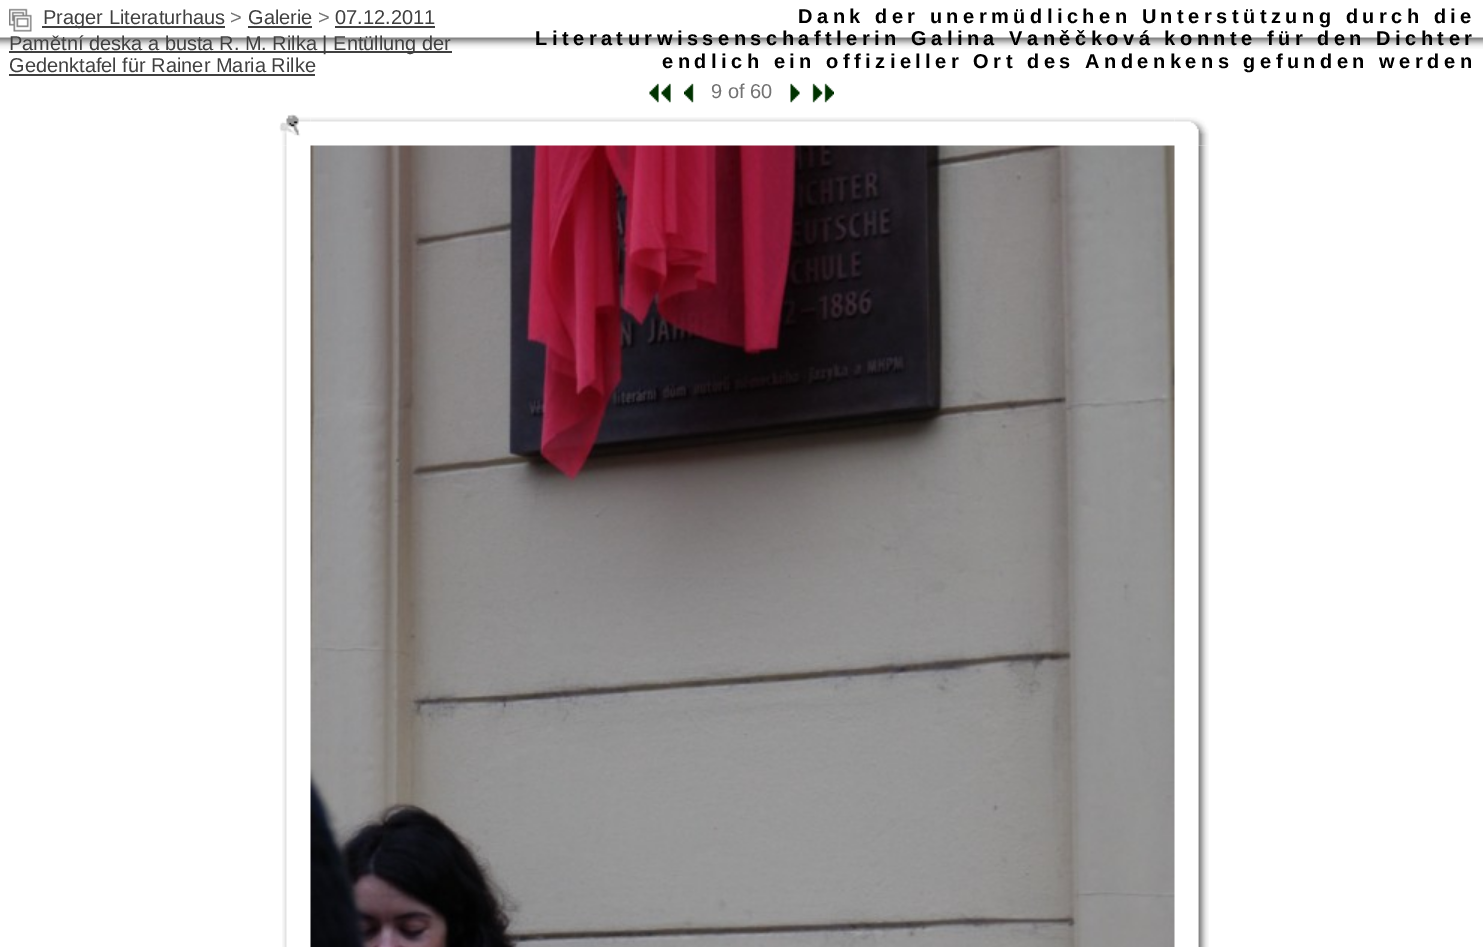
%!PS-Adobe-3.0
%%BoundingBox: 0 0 1483 947
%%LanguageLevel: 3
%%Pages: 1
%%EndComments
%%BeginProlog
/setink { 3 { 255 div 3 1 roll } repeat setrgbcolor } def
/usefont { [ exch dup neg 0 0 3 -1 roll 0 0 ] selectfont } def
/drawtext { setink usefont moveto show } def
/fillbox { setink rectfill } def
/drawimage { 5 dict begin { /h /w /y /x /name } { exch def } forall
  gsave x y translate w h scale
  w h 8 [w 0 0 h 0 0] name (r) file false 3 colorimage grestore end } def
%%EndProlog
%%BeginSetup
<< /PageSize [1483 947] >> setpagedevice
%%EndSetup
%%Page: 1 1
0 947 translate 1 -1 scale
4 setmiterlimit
0 0 1483 947 255 255 255 fillbox
(assets/img1.rgb) 0 37 1483 12 drawimage
(assets/img2.rgb) 9 8 23 24 drawimage
42 26 183 2 64 64 64 fillbox
(Prager Literaturhaus) 43 24 /LiberationSans-Regular 20 64 64 64 drawtext
(>) 230 24 /LiberationSans-Regular 20 115 115 115 drawtext
(Galerie) 248 24 /LiberationSans-Regular 20 64 64 64 drawtext
248 26 64 2 64 64 64 fillbox
(>) 318 24 /LiberationSans-Regular 20 115 115 115 drawtext
(07.12.2011) 335 24 /LiberationSans-Regular 20 64 64 64 drawtext
335 26 100 2 64 64 64 fillbox
9 51 443 2 64 64 64 fillbox
(Pamětní deska a busta R. M. Rilka | Entüllung der) 9 50 /LiberationSans-Regular 20 64 64 64 drawtext
(Gedenktafel für Rainer Maria Rilke) 9 72 /LiberationSans-Regular 20 64 64 64 drawtext
9 74 306 2 64 64 64 fillbox
/LiberationSans-Bold 20 usefont
0 0 0 setink
798 23 moveto 4.5 0 (Dank der unermüdlichen Unterstützung durch die) ashow
535 45 moveto 4.5 0 (Literaturwissenschaftlerin Galina Vaněčková konnte für den Dichter) ashow
662 68 moveto 4.5 0 (endlich ein offizieller Ort des Andenkens gefunden werden) ashow
(assets/img3.rgb) 649 83 22 20 drawimage
(assets/img4.rgb) 684 83 10 20 drawimage
(9 of 60) 711 98 /LiberationSans-Regular 20 115 115 115 drawtext
(assets/img5.rgb) 790 83 10 20 drawimage
(assets/img6.rgb) 812 83 22 20 drawimage
(assets/img7.rgb) 279 114 32 32 drawimage
(assets/img8.rgb) 310 117 865 5 drawimage
(assets/img9.rgb) 1174 117 35 29 drawimage
(assets/img10.rgb) 282 145 5 802 drawimage
(assets/img11.rgb) 310 145 865 802 drawimage
(assets/img12.rgb) 1198 145 11 802 drawimage
showpage
%%EOF
